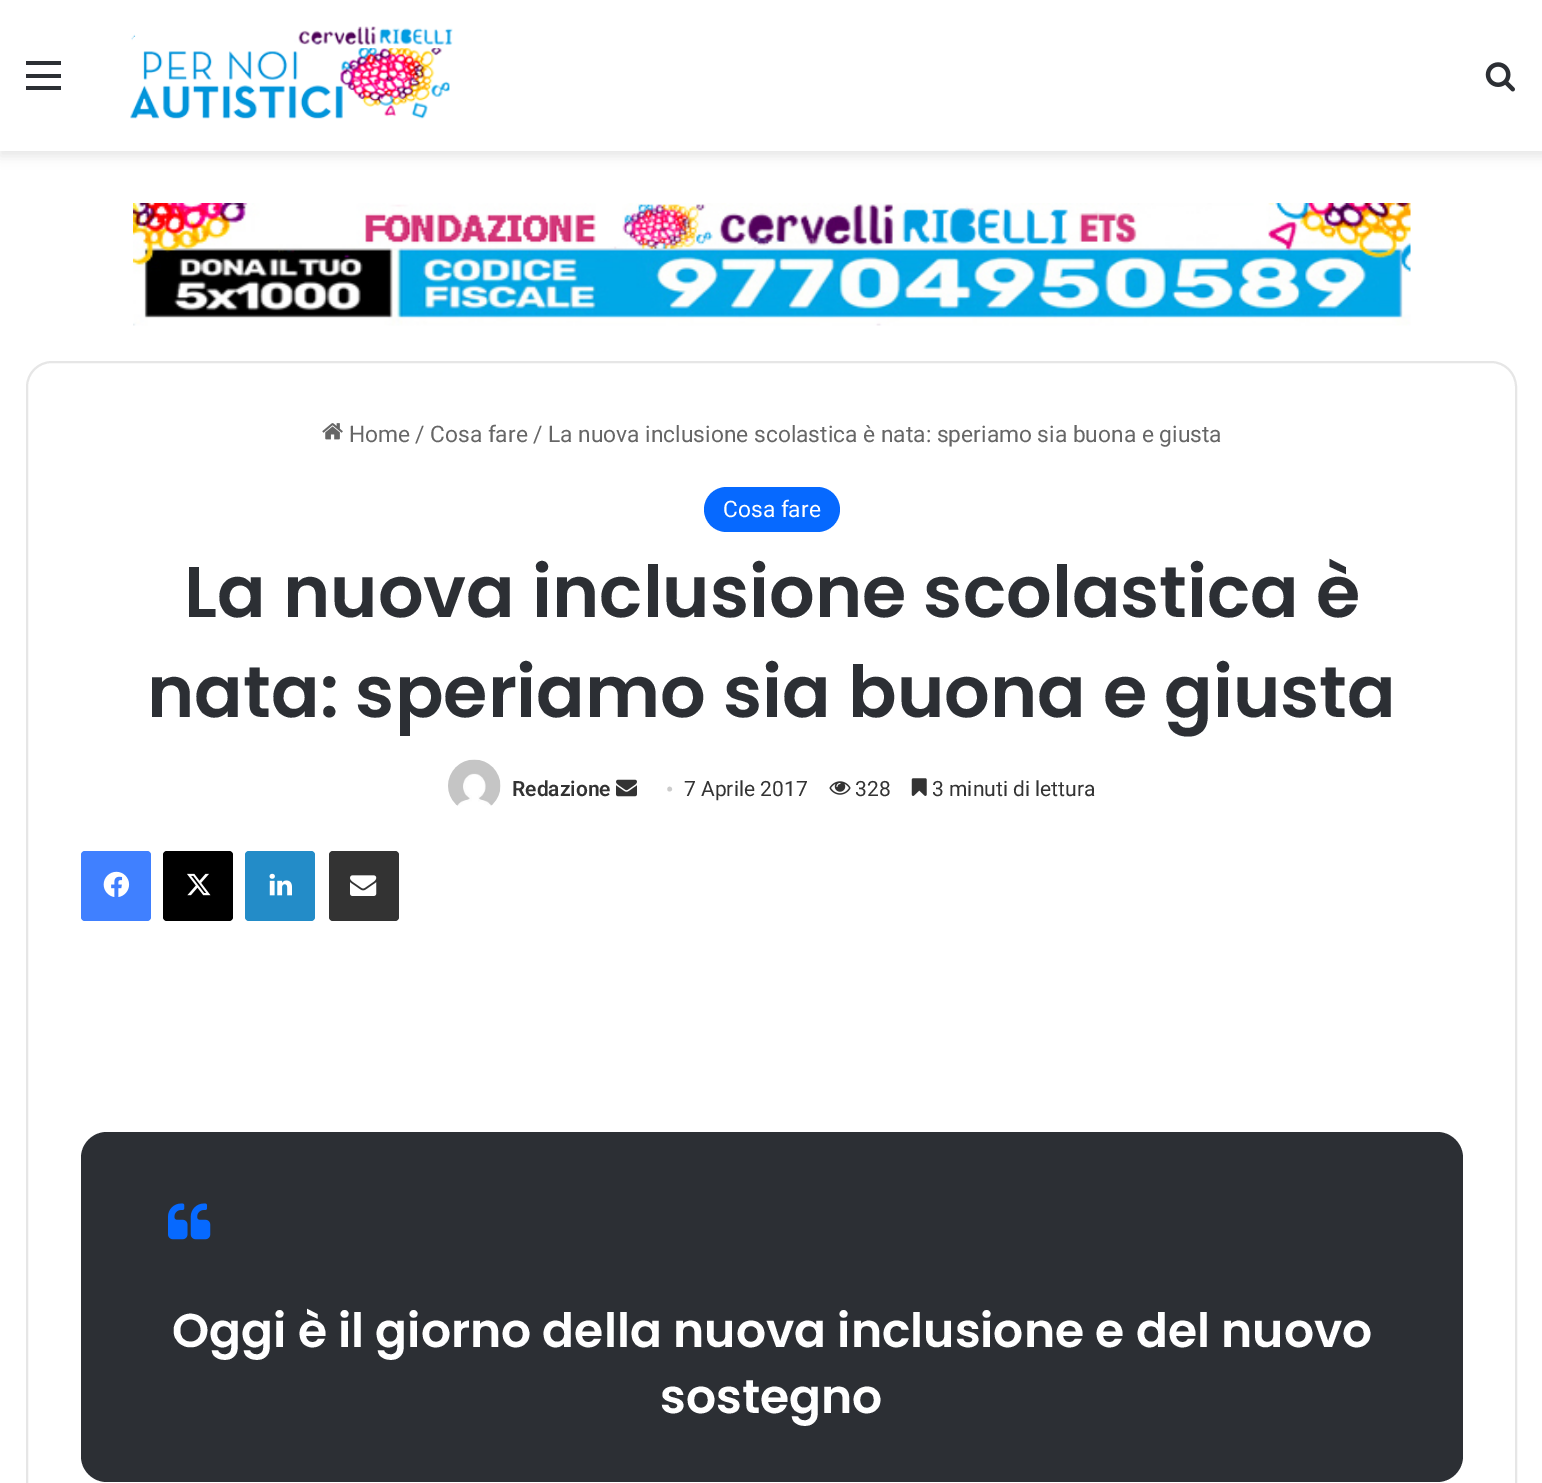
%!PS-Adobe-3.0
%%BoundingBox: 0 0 1542 1483
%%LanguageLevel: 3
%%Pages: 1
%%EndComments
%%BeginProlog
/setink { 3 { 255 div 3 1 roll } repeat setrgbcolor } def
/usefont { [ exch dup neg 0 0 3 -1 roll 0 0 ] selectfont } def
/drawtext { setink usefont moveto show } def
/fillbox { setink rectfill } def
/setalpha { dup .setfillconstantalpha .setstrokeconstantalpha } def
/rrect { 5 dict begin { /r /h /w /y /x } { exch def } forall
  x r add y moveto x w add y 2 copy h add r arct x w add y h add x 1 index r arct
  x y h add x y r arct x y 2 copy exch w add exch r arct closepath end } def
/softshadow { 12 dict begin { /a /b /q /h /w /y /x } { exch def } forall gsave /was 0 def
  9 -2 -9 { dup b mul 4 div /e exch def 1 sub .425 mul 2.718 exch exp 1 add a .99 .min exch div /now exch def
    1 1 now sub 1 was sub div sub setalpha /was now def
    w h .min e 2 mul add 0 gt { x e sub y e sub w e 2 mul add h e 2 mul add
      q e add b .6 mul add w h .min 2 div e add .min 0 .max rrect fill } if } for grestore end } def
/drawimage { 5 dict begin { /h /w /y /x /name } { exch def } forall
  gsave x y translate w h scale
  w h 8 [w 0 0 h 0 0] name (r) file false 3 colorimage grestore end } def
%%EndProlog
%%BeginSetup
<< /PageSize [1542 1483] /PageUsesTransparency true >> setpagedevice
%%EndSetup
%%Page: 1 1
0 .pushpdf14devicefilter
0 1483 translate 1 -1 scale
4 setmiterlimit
0 0 1542 1483 255 255 255 fillbox
0 0 0 setink
0 5 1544 151 0 6 0.1 softshadow
0 0 1542 151 255 255 255 fillbox
26 74 35 4 44 47 52 fillbox
26 61 35 4 44 47 52 fillbox
26 86 35 4 44 47 52 fillbox
(assets/img1.rgb) 130 26 323 93 drawimage
(assets/img2.rgb) 1485 62 30 30 drawimage
(assets/img3.rgb) 133 203 1278 123 drawimage
230 230 230 setink
2 setlinewidth
27 362 1489 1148 25 rrect stroke
(assets/img4.rgb) 322 423 21 17 drawimage
(Home) 349 442 /Roboto-Regular 22.75 102 102 102 drawtext
(/) 415 442 /Roboto-Regular 22.75 102 102 102 drawtext
(Cosa fare) 430 442 /Roboto-Regular 22.75 102 102 102 drawtext
(/) 533 442 /Roboto-Regular 22.75 102 102 102 drawtext
(La nuova inclusione scolastica è nata: speriamo sia buona e giusta) 548 442 /Roboto-Regular 22.75 102 102 102 drawtext
6 105 255 setink
704 487 136 45 22.5 rrect fill
(Cosa fare) 723 517 /Roboto-Regular 22.75 255 255 255 drawtext
(La nuova inclusione scolastica è) 184 617 /Poppins-SemiBold 71.75 44 47 52 drawtext
(nata: speriamo sia buona e giusta) 147 717 /Poppins-SemiBold 71.75 44 47 52 drawtext
(assets/img5.rgb) 448 759 53 47 drawimage
(Redazione) 512 796 /Roboto-SemiBold 21 51 51 51 drawtext
(assets/img6.rgb) 616 779 21 18 drawimage
(•) 666 796 /LiberationSerif-Regular 21 204 204 204 drawtext
(7 Aprile 2017) 684 796 /Roboto-Regular 21 51 51 51 drawtext
(assets/img7.rgb) 829 781 22 14 drawimage
(328) 855 796 /Roboto-Regular 21 51 51 51 drawtext
(assets/img8.rgb) 911 778 16 18 drawimage
(3 minuti di lettura) 932 796 /Roboto-Regular 21 51 51 51 drawtext
64 128 255 setink
81 851 70 70 4 rrect fill
(assets/img9.rgb) 103 871 27 26 drawimage
0 0 0 setink
163 851 70 70 4 rrect fill
(assets/img10.rgb) 187 873 24 23 drawimage
35 140 200 setink
245 851 70 70 4 rrect fill
(assets/img11.rgb) 269 873 23 23 drawimage
51 51 51 setink
329 851 70 70 4 rrect fill
(assets/img12.rgb) 350 875 27 21 drawimage
44 47 52 setink
81 1132 1382 350 26 rrect fill
(assets/img13.rgb) 168 1203 43 37 drawimage
(Oggi è il giorno della nuova inclusione e del nuovo) 172 1347 /Poppins-SemiBold 47.25 255 255 255 drawtext
(sostegno) 660 1413 /Poppins-SemiBold 47.25 255 255 255 drawtext
.poppdf14devicefilter showpage
%%EOF
